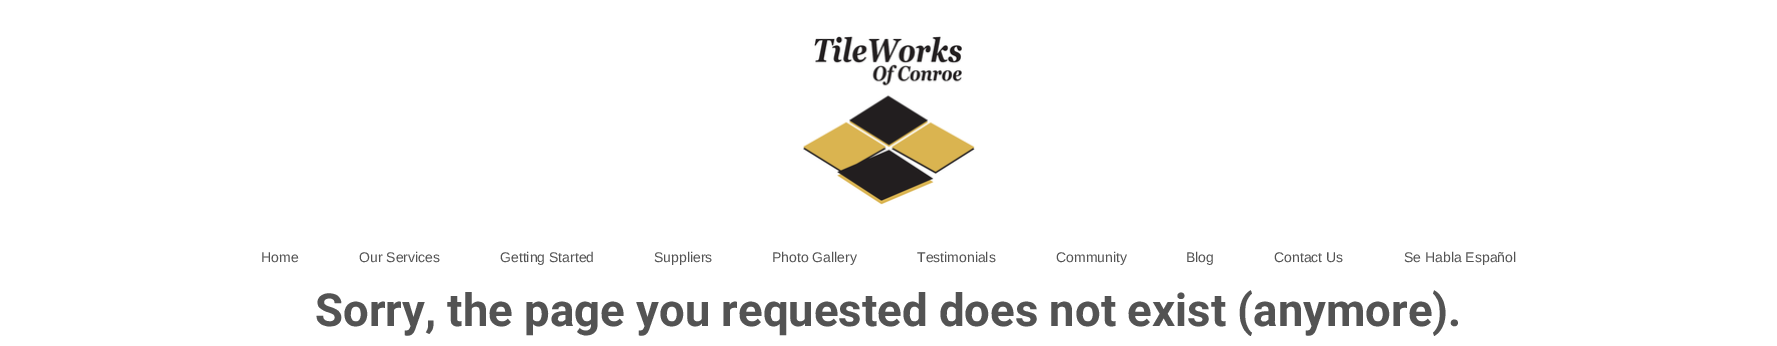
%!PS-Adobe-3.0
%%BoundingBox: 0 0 1777 346
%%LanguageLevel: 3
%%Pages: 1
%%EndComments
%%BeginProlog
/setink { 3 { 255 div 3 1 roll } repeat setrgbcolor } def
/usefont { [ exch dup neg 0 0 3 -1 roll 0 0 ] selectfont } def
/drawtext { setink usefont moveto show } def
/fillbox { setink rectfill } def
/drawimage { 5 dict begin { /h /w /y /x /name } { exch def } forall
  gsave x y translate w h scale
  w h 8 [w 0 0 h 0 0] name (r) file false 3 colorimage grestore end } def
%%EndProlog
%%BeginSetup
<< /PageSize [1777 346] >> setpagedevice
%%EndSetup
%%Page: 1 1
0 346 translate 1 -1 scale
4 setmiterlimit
0 0 1777 346 255 255 255 fillbox
(assets/img1.rgb) 803 36 172 169 drawimage
(Home) 261 262 /LiberationSans-Regular 14 83 83 83 drawtext
(Our Services) 359 262 /LiberationSans-Regular 14 83 83 83 drawtext
(Getting Started) 500 262 /LiberationSans-Regular 14 83 83 83 drawtext
(Suppliers) 654 262 /LiberationSans-Regular 14 83 83 83 drawtext
(Photo Gallery) 772 262 /LiberationSans-Regular 14 83 83 83 drawtext
(Testimonials) 917 262 /LiberationSans-Regular 14 83 83 83 drawtext
(Community) 1056 262 /LiberationSans-Regular 14 83 83 83 drawtext
(Blog) 1186 262 /LiberationSans-Regular 14 83 83 83 drawtext
(Contact Us) 1274 262 /LiberationSans-Regular 14 83 83 83 drawtext
(Se Habla Español) 1404 262 /LiberationSans-Regular 14 83 83 83 drawtext
(Sorry, the page you requested does not exist \(anymore\).) 315 326 /Roboto-Bold 45.5 83 83 83 drawtext
showpage
%%EOF
